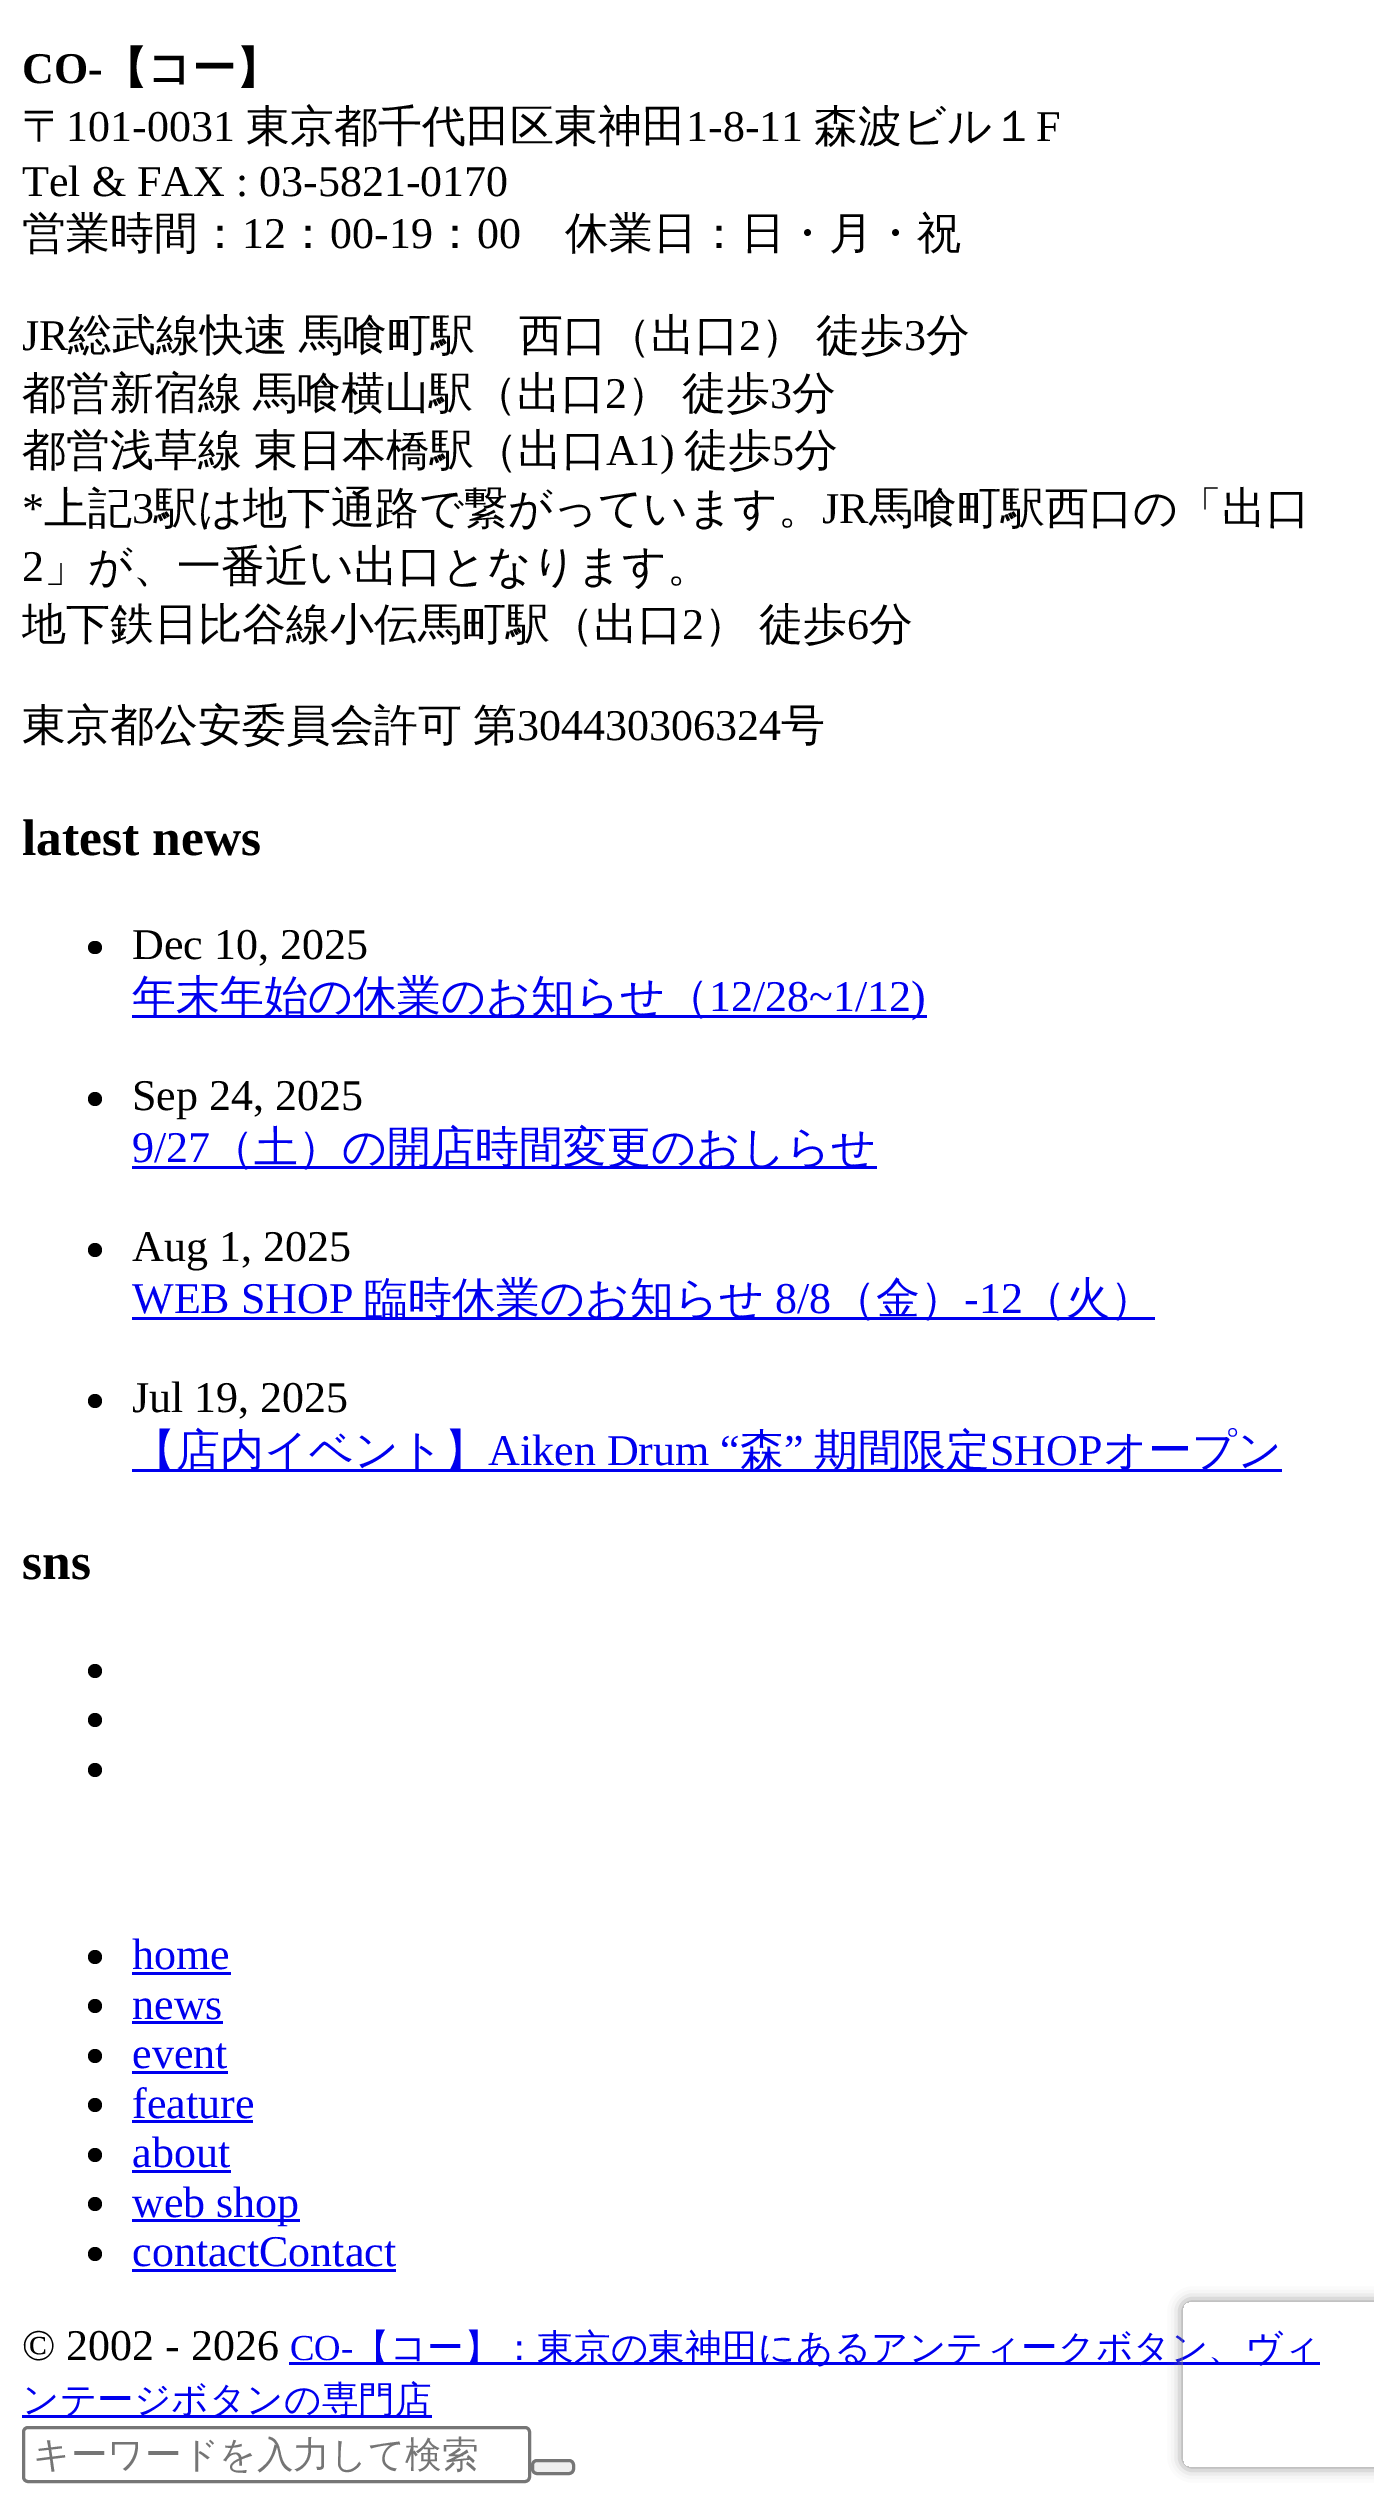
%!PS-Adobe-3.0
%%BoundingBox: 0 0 1374 2504
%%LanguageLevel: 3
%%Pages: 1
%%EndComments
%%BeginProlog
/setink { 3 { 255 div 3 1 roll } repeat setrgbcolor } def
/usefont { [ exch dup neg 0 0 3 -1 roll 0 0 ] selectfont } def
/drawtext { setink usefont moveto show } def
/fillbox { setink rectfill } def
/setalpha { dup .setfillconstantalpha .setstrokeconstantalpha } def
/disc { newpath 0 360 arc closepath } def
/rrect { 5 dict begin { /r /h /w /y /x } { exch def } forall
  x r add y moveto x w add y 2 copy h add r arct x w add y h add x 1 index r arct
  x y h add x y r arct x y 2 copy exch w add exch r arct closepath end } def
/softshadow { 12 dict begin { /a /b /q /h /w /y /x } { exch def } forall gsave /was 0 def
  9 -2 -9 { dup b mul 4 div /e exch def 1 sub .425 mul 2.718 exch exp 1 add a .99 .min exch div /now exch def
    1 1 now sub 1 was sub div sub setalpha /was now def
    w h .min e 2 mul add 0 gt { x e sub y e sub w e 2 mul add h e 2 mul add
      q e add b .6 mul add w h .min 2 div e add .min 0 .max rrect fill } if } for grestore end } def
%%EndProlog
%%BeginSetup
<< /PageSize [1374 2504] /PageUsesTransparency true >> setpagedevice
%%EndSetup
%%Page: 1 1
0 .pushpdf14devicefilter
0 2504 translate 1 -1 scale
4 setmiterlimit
0 0 1374 2504 255 255 255 fillbox
(CO-) 22 83 /LiberationSerif-Bold 44 0 0 0 drawtext
(【コー】) 103 83 /WenQuanYiZenHei-Bold 44 0 0 0 drawtext
(〒) 22 141 /WenQuanYiZenHei-Medium 44 0 0 0 drawtext
(101-0031) 66 141 /LiberationSerif-Regular 44 0 0 0 drawtext
(東京都千代田区東神田) 246 141 /WenQuanYiZenHei-Medium 44 0 0 0 drawtext
(1-8-11) 686 141 /LiberationSerif-Regular 44 0 0 0 drawtext
(森波ビル１) 814 141 /WenQuanYiZenHei-Medium 44 0 0 0 drawtext
(F) 1036 141 /LiberationSerif-Regular 44 0 0 0 drawtext
(Tel & FAX : 03-5821-0170) 22 196 /LiberationSerif-Regular 44 0 0 0 drawtext
(営業時間：) 22 248 /WenQuanYiZenHei-Medium 44 0 0 0 drawtext
(12) 242 248 /LiberationSerif-Regular 44 0 0 0 drawtext
(：) 286 248 /WenQuanYiZenHei-Medium 44 0 0 0 drawtext
(00-19) 330 248 /LiberationSerif-Regular 44 0 0 0 drawtext
(：) 433 248 /WenQuanYiZenHei-Medium 44 0 0 0 drawtext
(00) 477 248 /LiberationSerif-Regular 44 0 0 0 drawtext
(休業日：日・月・祝) 565 248 /WenQuanYiZenHei-Medium 44 0 0 0 drawtext
(JR) 22 350 /LiberationSerif-Regular 44 0 0 0 drawtext
/WenQuanYiZenHei-Medium 44 usefont
68 350 moveto -2 0 32 (総武線快速 馬喰町駅　西口（出口) widthshow
(2) 739 350 /LiberationSerif-Regular 44 0 0 0 drawtext
/WenQuanYiZenHei-Medium 44 usefont
761 350 moveto -2 0 32 (） 徒歩) widthshow
(3) 904 350 /LiberationSerif-Regular 44 0 0 0 drawtext
(分) 926 350 /WenQuanYiZenHei-Medium 44 0 0 0 drawtext
22 408 moveto -2 0 32 (都営新宿線 馬喰横山駅（出口) widthshow
(2) 605 408 /LiberationSerif-Regular 44 0 0 0 drawtext
/WenQuanYiZenHei-Medium 44 usefont
627 408 moveto -2 0 32 (） 徒歩) widthshow
(3) 770 408 /LiberationSerif-Regular 44 0 0 0 drawtext
(分) 792 408 /WenQuanYiZenHei-Medium 44 0 0 0 drawtext
22 465 moveto -1 0 32 (都営浅草線 東日本橋駅（出口) widthshow
(A1\)) 606 465 /LiberationSerif-Regular 44 0 0 0 drawtext
(徒歩) 684 465 /WenQuanYiZenHei-Medium 44 0 0 0 drawtext
(5) 772 465 /LiberationSerif-Regular 44 0 0 0 drawtext
(分) 794 465 /WenQuanYiZenHei-Medium 44 0 0 0 drawtext
(*) 22 523 /LiberationSerif-Regular 44 0 0 0 drawtext
(上記) 44 523 /WenQuanYiZenHei-Medium 44 0 0 0 drawtext
(3) 132 523 /LiberationSerif-Regular 44 0 0 0 drawtext
(駅は地下通路で繋がっています。) 154 523 /WenQuanYiZenHei-Medium 44 0 0 0 drawtext
(JR) 822 523 /LiberationSerif-Regular 44 0 0 0 drawtext
(馬喰町駅西口の「出口) 869 523 /WenQuanYiZenHei-Medium 44 0 0 0 drawtext
(2) 22 581 /LiberationSerif-Regular 44 0 0 0 drawtext
(」が、一番近い出口となります。) 44 581 /WenQuanYiZenHei-Medium 44 0 0 0 drawtext
(地下鉄日比谷線小伝馬町駅（出口) 22 639 /WenQuanYiZenHei-Medium 44 0 0 0 drawtext
(2) 682 639 /LiberationSerif-Regular 44 0 0 0 drawtext
/WenQuanYiZenHei-Medium 44 usefont
704 639 moveto -2 0 32 (） 徒歩) widthshow
(6) 847 639 /LiberationSerif-Regular 44 0 0 0 drawtext
(分) 869 639 /WenQuanYiZenHei-Medium 44 0 0 0 drawtext
22 740 moveto -2 0 32 (東京都公安委員会許可 第) widthshow
(304430306324) 517 740 /LiberationSerif-Regular 44 0 0 0 drawtext
(号) 781 740 /WenQuanYiZenHei-Medium 44 0 0 0 drawtext
(latest news) 22 855 /LiberationSerif-Bold 51.5 0 0 0 drawtext
88 941 14 13 6.5 rrect fill
(Dec 10, 2025) 132 959 /LiberationSerif-Regular 44 0 0 0 drawtext
132 1015 795 3 0 0 238 fillbox
(年末年始の休業のお知らせ（) 132 1011 /WenQuanYiZenHei-Medium 44 0 0 238 drawtext
(12/28~1/12\)) 709 1011 /LiberationSerif-Regular 44 0 0 238 drawtext
0 0 0 setink
95 1099 7 disc fill
(Sep 24, 2025) 132 1110 /LiberationSerif-Regular 44 0 0 0 drawtext
(9/27) 132 1162 /LiberationSerif-Regular 44 0 0 238 drawtext
132 1166 745 3 0 0 238 fillbox
(（土）の開店時間変更のおしらせ) 210 1162 /WenQuanYiZenHei-Medium 44 0 0 238 drawtext
0 0 0 setink
95 1250 7 disc fill
(Aug 1, 2025) 132 1261 /LiberationSerif-Regular 44 0 0 0 drawtext
(WEB SHOP) 132 1313 /LiberationSerif-Regular 44 0 0 238 drawtext
132 1317 1023 3 0 0 238 fillbox
(臨時休業のお知らせ) 364 1313 /WenQuanYiZenHei-Medium 44 0 0 238 drawtext
(8/8) 775 1313 /LiberationSerif-Regular 44 0 0 238 drawtext
(（金）) 832 1313 /WenQuanYiZenHei-Medium 44 0 0 238 drawtext
(-12) 964 1313 /LiberationSerif-Regular 44 0 0 238 drawtext
(（火）) 1022 1313 /WenQuanYiZenHei-Medium 44 0 0 238 drawtext
0 0 0 setink
95 1401 7 disc fill
(Jul 19, 2025) 132 1412 /LiberationSerif-Regular 44 0 0 0 drawtext
132 1469 1150 3 0 0 238 fillbox
(【店内イベント】) 132 1465 /WenQuanYiZenHei-Medium 44 0 0 238 drawtext
(Aiken Drum “) 488 1465 /LiberationSerif-Regular 44 0 0 238 drawtext
(森) 740 1465 /WenQuanYiZenHei-Medium 44 0 0 238 drawtext
(”) 784 1465 /LiberationSerif-Regular 44 0 0 238 drawtext
(期間限定) 814 1465 /WenQuanYiZenHei-Medium 44 0 0 238 drawtext
(SHOP) 990 1465 /LiberationSerif-Regular 44 0 0 238 drawtext
(オープン) 1103 1465 /WenQuanYiZenHei-Medium 44 0 0 238 drawtext
(sns) 22 1579 /LiberationSerif-Bold 51.5 0 0 0 drawtext
95 1671 7 disc fill
95 1720 7 disc fill
95 1770 7 disc fill
95 1957 7 disc fill
(home) 132 1969 /LiberationSerif-Regular 44 0 0 238 drawtext
132 1972 99 3 0 0 238 fillbox
0 0 0 setink
95 2006 7 disc fill
(news) 132 2019 /LiberationSerif-Regular 44 0 0 238 drawtext
132 2021 91 3 0 0 238 fillbox
0 0 0 setink
95 2056 7 disc fill
(event) 132 2068 /LiberationSerif-Regular 44 0 0 238 drawtext
132 2071 96 3 0 0 238 fillbox
0 0 0 setink
95 2105 7 disc fill
(feature) 132 2118 /LiberationSerif-Regular 44 0 0 238 drawtext
132 2120 121 3 0 0 238 fillbox
0 0 0 setink
95 2155 7 disc fill
(about) 132 2167 /LiberationSerif-Regular 44 0 0 238 drawtext
132 2170 99 3 0 0 238 fillbox
0 0 0 setink
95 2204 7 disc fill
132 2219 168 3 0 0 238 fillbox
(web shop) 132 2217 /LiberationSerif-Regular 44 0 0 238 drawtext
0 0 0 setink
95 2254 7 disc fill
(contactContact) 132 2266 /LiberationSerif-Regular 44 0 0 238 drawtext
132 2269 264 3 0 0 238 fillbox
(© 2002 - 2026) 22 2360 /LiberationSerif-Regular 44 0 0 0 drawtext
(CO-) 290 2360 /LiberationSerif-Regular 36.7 0 0 238 drawtext
289 2362 1031 3 0 0 238 fillbox
(【コー】：東京の東神田にあるアンティークボタン、ヴィ) 353 2360 /WenQuanYiZenHei-Medium 36.7 0 0 238 drawtext
22 2415 410 3 0 0 238 fillbox
(ンテージボタンの専門店) 22 2412 /WenQuanYiZenHei-Medium 36.7 0 0 238 drawtext
118 118 118 setink
3 setlinewidth
23.5 2427.5 506 54 4.5 rrect stroke
(キーワードを入力して検索) 33 2467 /WenQuanYiZenHei-Medium 36.7 117 117 117 drawtext
239 239 239 setink
532.5 2460.5 41 13 4.5 rrect gsave fill grestore
118 118 118 setink
stroke
gsave
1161 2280 moveto 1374 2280 lineto 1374 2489 lineto 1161 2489 lineto closepath 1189 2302 moveto 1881 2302 lineto 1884.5 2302 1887 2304.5 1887 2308 curveto 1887 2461 lineto 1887 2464.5 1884.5 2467 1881 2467 curveto 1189 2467 lineto 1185.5 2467 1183 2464.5 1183 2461 curveto 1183 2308 lineto 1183 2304.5 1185.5 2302 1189 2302 curveto closepath eoclip newpath
128 128 128 setink
1183 2302 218 165 6 7 1 softshadow
grestore
.poppdf14devicefilter showpage
%%EOF
